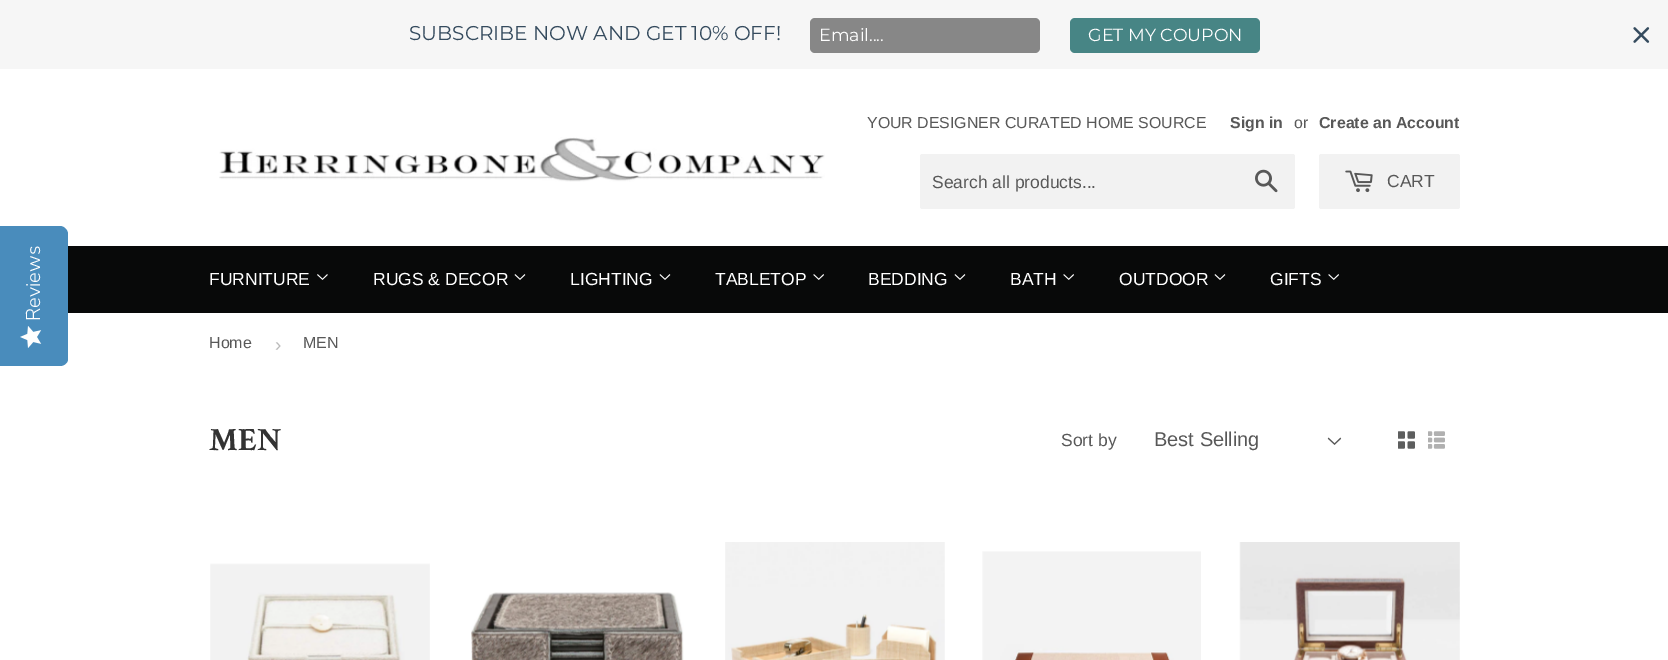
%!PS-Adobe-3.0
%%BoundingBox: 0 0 1668 660
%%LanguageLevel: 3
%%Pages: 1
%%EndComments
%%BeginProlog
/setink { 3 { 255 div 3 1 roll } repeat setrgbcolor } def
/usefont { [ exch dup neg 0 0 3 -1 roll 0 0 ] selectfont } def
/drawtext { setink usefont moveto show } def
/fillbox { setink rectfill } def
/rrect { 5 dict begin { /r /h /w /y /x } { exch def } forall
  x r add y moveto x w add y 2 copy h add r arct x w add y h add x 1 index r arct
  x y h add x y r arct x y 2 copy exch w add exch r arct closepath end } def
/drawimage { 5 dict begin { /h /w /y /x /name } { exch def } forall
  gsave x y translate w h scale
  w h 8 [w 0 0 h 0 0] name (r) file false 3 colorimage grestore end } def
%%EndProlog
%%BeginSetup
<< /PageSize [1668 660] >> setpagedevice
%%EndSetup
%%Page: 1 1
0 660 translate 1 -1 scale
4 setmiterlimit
0 0 1668 660 255 255 255 fillbox
0 0 1668 69 246 246 246 fillbox
(SUBSCRIBE NOW AND GET 10% OFF!) 409 40 /Montserrat-Thin 20 53 75 94 drawtext
135 135 135 setink
810 18 230 35 5 rrect fill
(Email....) 819 41 /Montserrat-Thin 17.5 255 255 255 drawtext
71 133 133 setink
1070 18 190 35 5 rrect fill
(GET MY COUPON) 1088 41 /Montserrat-Thin 17.5 255 255 255 drawtext
(assets/img1.rgb) 1633 27 17 16 drawimage
(assets/img2.rgb) 219 137 606 45 drawimage
(YOUR DESIGNER CURATED HOME SOURCE) 867 128 /LiberationSans-Regular 15.9 88 88 88 drawtext
(Sign in) 1230 128 /LiberationSans-Bold 15.9 88 88 88 drawtext
(or) 1294 128 /LiberationSans-Regular 15.9 88 88 88 drawtext
(Create an Account) 1319 128 /LiberationSans-Bold 15.9 88 88 88 drawtext
242 242 242 setink
920 154 375 55 2.5 rrect fill
(Search all products...) 932 188 /LiberationSans-Regular 17.5 88 88 88 drawtext
(assets/img3.rgb) 1255 169 23 24 drawimage
242 242 242 setink
1319 154 141 55 2.5 rrect fill
(assets/img4.rgb) 1345 170 28 23 drawimage
(CART) 1387 187 /LiberationSans-Regular 17.5 88 88 88 drawtext
73 140 188 setink
0 366 moveto 0 226 lineto 60 226 lineto 64 226 68 230 68 234 curveto 68 359 lineto 68 363 64 366 60 366 curveto closepath fill
/NunitoSans-Light 20 usefont
255 255 255 setink
gsave 40 321 translate -90 rotate 0 0 moveto (Reviews) show grestore
(assets/img5.rgb) 20 326 22 22 drawimage
68 246 1600 67 8 9 9 fillbox
(FURNITURE) 209 285 /LiberationSans-Regular 17.5 255 255 255 drawtext
(assets/img6.rgb) 317 274 11 6 drawimage
(RUGS & DECOR) 373 285 /LiberationSans-Regular 17.5 255 255 255 drawtext
(assets/img7.rgb) 514 274 12 6 drawimage
(LIGHTING) 570 285 /LiberationSans-Regular 17.5 255 255 255 drawtext
(assets/img7.rgb) 659 274 12 6 drawimage
(TABLETOP) 715 285 /LiberationSans-Regular 17.5 255 255 255 drawtext
(assets/img8.rgb) 813 274 11 6 drawimage
(BEDDING) 868 285 /LiberationSans-Regular 17.5 255 255 255 drawtext
(assets/img7.rgb) 954 274 12 6 drawimage
(BATH) 1010 285 /LiberationSans-Regular 17.5 255 255 255 drawtext
(assets/img8.rgb) 1063 274 11 6 drawimage
(OUTDOOR) 1119 285 /LiberationSans-Regular 17.5 255 255 255 drawtext
(assets/img7.rgb) 1214 274 12 6 drawimage
(GIFTS) 1270 285 /LiberationSans-Regular 17.5 255 255 255 drawtext
(assets/img8.rgb) 1328 274 11 6 drawimage
(Home) 209 348 /LiberationSans-Regular 16 88 88 88 drawtext
(›) 275 351 /LiberationSans-Regular 19 187 187 187 drawtext
(MEN) 303 348 /LiberationSans-Regular 16 88 88 88 drawtext
(MEN) 209 450 /CrimsonText-Bold 32.5 51 51 51 drawtext
(Sort by) 1061 446 /LiberationSans-Regular 17.5 88 88 88 drawtext
(assets/img9.rgb) 1327 437 15 8 drawimage
(Best Selling) 1154 446 /LiberationSans-Regular 20 88 88 88 drawtext
(assets/img10.rgb) 1398 431 17 18 drawimage
(assets/img11.rgb) 1428 431 17 18 drawimage
(assets/img12.rgb) 210 563 220 97 drawimage
(assets/img13.rgb) 471 592 213 68 drawimage
(assets/img14.rgb) 725 542 220 118 drawimage
(assets/img15.rgb) 982 551 219 109 drawimage
(assets/img16.rgb) 1239 542 221 118 drawimage
showpage
%%EOF
